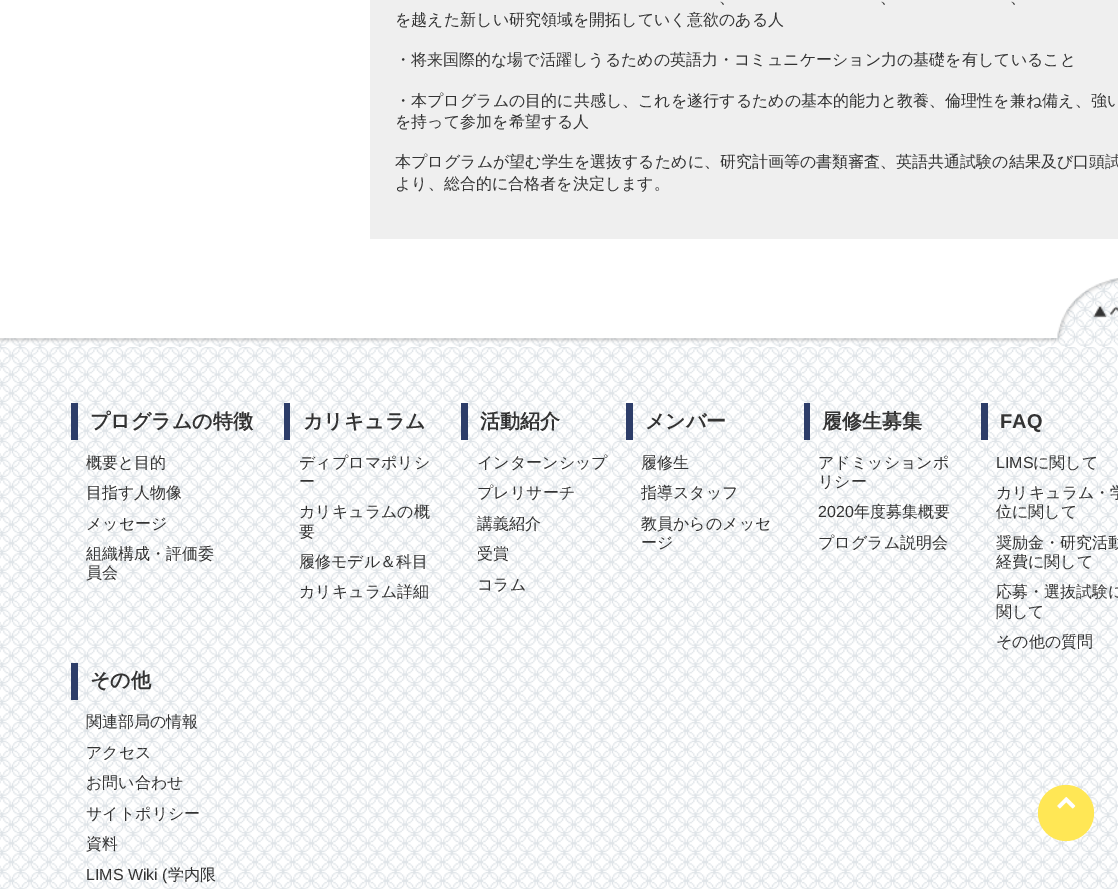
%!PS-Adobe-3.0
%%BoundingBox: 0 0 1118 889
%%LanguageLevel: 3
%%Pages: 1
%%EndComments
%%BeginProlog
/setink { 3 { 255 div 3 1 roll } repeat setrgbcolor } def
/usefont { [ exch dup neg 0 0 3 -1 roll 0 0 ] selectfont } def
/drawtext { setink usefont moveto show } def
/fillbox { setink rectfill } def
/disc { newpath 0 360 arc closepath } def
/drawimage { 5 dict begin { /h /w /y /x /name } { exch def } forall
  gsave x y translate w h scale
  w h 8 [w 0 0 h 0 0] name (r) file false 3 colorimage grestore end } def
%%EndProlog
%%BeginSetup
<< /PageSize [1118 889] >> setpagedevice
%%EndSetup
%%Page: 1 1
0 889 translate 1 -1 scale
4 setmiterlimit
0 0 1118 889 255 255 255 fillbox
370 0 748 239 239 239 239 fillbox
(、) 719 3 /WenQuanYiZenHei-Medium 16 51 51 51 drawtext
(、) 880 3 /WenQuanYiZenHei-Medium 16 51 51 51 drawtext
(、) 1010 3 /WenQuanYiZenHei-Medium 16 51 51 51 drawtext
(を越えた新しい研究領域を開拓していく意欲のある人) 395 25 /WenQuanYiZenHei-Medium 16 51 51 51 drawtext
(・将来国際的な場で活躍しうるための英語力・コミュニケーション力の基礎を有していること) 395 65 /WenQuanYiZenHei-Medium 16 51 51 51 drawtext
(・本プログラムの目的に共感し、これを遂行するための基本的能力と教養、倫理性を兼ね備え、強い) 395 106 /WenQuanYiZenHei-Medium 16 51 51 51 drawtext
(を持って参加を希望する人) 395 127 /WenQuanYiZenHei-Medium 16 51 51 51 drawtext
(本プログラムが望む学生を選抜するために、研究計画等の書類審査、英語共通試験の結果及び口頭試) 395 167 /WenQuanYiZenHei-Medium 16 51 51 51 drawtext
(より、総合的に合格者を決定します。) 395 189 /WenQuanYiZenHei-Medium 16 51 51 51 drawtext
(assets/img1.rgb) 0 338 1059 9 drawimage
(assets/img2.rgb) 1051 278 67 69 drawimage
(assets/img3.rgb) 0 347 1118 542 drawimage
71 403 7 37 45 61 105 fillbox
(プログラムの特徴) 90 428 /WenQuanYiZenHei-Bold 20 51 51 51 drawtext
(概要と目的) 86 468 /WenQuanYiZenHei-Medium 16 51 51 51 drawtext
(目指す人物像) 86 498 /WenQuanYiZenHei-Medium 16 51 51 51 drawtext
(メッセージ) 86 529 /WenQuanYiZenHei-Medium 16 51 51 51 drawtext
(組織構成・評価委) 86 559 /WenQuanYiZenHei-Medium 16 51 51 51 drawtext
(員会) 86 578 /WenQuanYiZenHei-Medium 16 51 51 51 drawtext
284 403 6 37 45 61 105 fillbox
(カリキュラム) 303 428 /WenQuanYiZenHei-Bold 20 51 51 51 drawtext
(ディプロマポリシ) 299 468 /WenQuanYiZenHei-Medium 16 51 51 51 drawtext
(ー) 299 487 /WenQuanYiZenHei-Medium 16 51 51 51 drawtext
(カリキュラムの概) 299 517 /WenQuanYiZenHei-Medium 16 51 51 51 drawtext
(要) 299 537 /WenQuanYiZenHei-Medium 16 51 51 51 drawtext
(履修モデル＆科目) 299 567 /WenQuanYiZenHei-Medium 16 51 51 51 drawtext
(カリキュラム詳細) 299 597 /WenQuanYiZenHei-Medium 16 51 51 51 drawtext
461 403 7 37 45 61 105 fillbox
(活動紹介) 480 428 /WenQuanYiZenHei-Bold 20 51 51 51 drawtext
(インターンシップ) 477 468 /WenQuanYiZenHei-Medium 16 51 51 51 drawtext
(プレリサーチ) 477 498 /WenQuanYiZenHei-Medium 16 51 51 51 drawtext
(講義紹介) 477 529 /WenQuanYiZenHei-Medium 16 51 51 51 drawtext
(受賞) 477 559 /WenQuanYiZenHei-Medium 16 51 51 51 drawtext
(コラム) 477 590 /WenQuanYiZenHei-Medium 16 51 51 51 drawtext
626 403 7 37 45 61 105 fillbox
(メンバー) 645 428 /WenQuanYiZenHei-Bold 20 51 51 51 drawtext
(履修生) 641 468 /WenQuanYiZenHei-Medium 16 51 51 51 drawtext
(指導スタッフ) 641 498 /WenQuanYiZenHei-Medium 16 51 51 51 drawtext
(教員からのメッセ) 641 529 /WenQuanYiZenHei-Medium 16 51 51 51 drawtext
(ージ) 641 548 /WenQuanYiZenHei-Medium 16 51 51 51 drawtext
804 403 6 37 45 61 105 fillbox
(履修生募集) 822 428 /WenQuanYiZenHei-Bold 20 51 51 51 drawtext
(アドミッションポ) 818 468 /WenQuanYiZenHei-Medium 16 51 51 51 drawtext
(リシー) 818 487 /WenQuanYiZenHei-Medium 16 51 51 51 drawtext
(2020) 818 517 /LiberationSans-Regular 16 51 51 51 drawtext
(年度募集概要) 854 517 /WenQuanYiZenHei-Medium 16 51 51 51 drawtext
(プログラム説明会) 818 548 /WenQuanYiZenHei-Medium 16 51 51 51 drawtext
981 403 7 37 45 61 105 fillbox
(FAQ) 1000 428 /LiberationSans-Bold 20 51 51 51 drawtext
(LIMS) 996 468 /LiberationSans-Regular 16 51 51 51 drawtext
(に関して) 1033 468 /WenQuanYiZenHei-Medium 16 51 51 51 drawtext
(カリキュラム・学) 996 498 /WenQuanYiZenHei-Medium 16 51 51 51 drawtext
(位に関して) 996 517 /WenQuanYiZenHei-Medium 16 51 51 51 drawtext
(奨励金・研究活動) 996 548 /WenQuanYiZenHei-Medium 16 51 51 51 drawtext
(経費に関して) 996 567 /WenQuanYiZenHei-Medium 16 51 51 51 drawtext
(応募・選抜試験に) 996 597 /WenQuanYiZenHei-Medium 16 51 51 51 drawtext
(関して) 996 617 /WenQuanYiZenHei-Medium 16 51 51 51 drawtext
(その他の質問) 996 647 /WenQuanYiZenHei-Medium 16 51 51 51 drawtext
71 663 7 37 45 61 105 fillbox
(その他) 90 687 /WenQuanYiZenHei-Bold 20 51 51 51 drawtext
(関連部局の情報) 86 727 /WenQuanYiZenHei-Medium 16 51 51 51 drawtext
(アクセス) 86 758 /WenQuanYiZenHei-Medium 16 51 51 51 drawtext
(お問い合わせ) 86 788 /WenQuanYiZenHei-Medium 16 51 51 51 drawtext
(サイトポリシー) 86 819 /WenQuanYiZenHei-Medium 16 51 51 51 drawtext
(資料) 86 849 /WenQuanYiZenHei-Medium 16 51 51 51 drawtext
(LIMS Wiki \() 86 880 /LiberationSans-Regular 16 51 51 51 drawtext
(学内限) 168 880 /WenQuanYiZenHei-Medium 16 51 51 51 drawtext
255 231 85 setink
1066 813 28 disc fill
(assets/img4.rgb) 1057 797 19 12 drawimage
showpage
%%EOF
